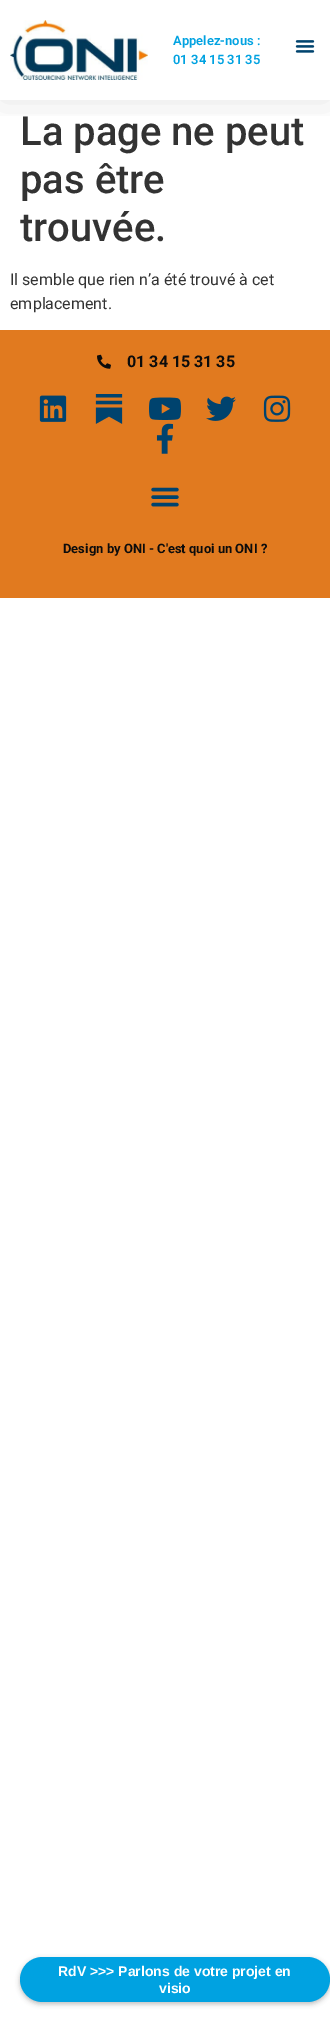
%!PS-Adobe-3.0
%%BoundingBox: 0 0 330 2017
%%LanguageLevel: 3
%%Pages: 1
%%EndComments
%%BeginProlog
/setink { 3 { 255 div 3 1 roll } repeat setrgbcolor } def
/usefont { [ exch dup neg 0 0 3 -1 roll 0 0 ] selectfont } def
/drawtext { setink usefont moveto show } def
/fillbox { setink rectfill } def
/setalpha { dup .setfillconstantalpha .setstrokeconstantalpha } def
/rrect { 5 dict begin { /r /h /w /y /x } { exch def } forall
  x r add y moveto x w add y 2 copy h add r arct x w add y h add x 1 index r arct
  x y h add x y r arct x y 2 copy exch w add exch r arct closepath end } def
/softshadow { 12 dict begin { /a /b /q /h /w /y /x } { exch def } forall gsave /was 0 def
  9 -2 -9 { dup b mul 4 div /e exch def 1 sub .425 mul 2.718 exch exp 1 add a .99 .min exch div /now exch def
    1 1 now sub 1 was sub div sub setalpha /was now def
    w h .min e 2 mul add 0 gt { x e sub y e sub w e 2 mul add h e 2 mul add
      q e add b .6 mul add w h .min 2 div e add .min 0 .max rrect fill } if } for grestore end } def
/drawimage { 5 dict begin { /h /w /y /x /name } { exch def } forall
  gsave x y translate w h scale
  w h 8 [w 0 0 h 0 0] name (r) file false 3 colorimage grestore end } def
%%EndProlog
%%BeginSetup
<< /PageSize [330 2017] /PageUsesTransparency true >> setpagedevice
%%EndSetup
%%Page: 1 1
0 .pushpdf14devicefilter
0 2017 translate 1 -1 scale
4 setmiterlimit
0 0 330 2017 255 255 255 fillbox
gsave
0 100 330 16 rectclip
0 0 0 setink
0 0 330 100 0 19 0.1 softshadow
grestore
(assets/img1.rgb) 10 20 138 60 drawimage
(Appelez-nous :) 173 45 /Roboto-SemiBold 13 0 162 225 drawtext
(01 34 15 31 35) 173 64 /Roboto-SemiBold 13 0 162 225 drawtext
(assets/img2.rgb) 295 40 20 13 drawimage
(La page ne peut) 20 145 /Roboto-Medium 40 51 51 51 drawtext
(pas être) 20 193 /Roboto-Medium 40 51 51 51 drawtext
(trouvée.) 20 241 /Roboto-Medium 40 51 51 51 drawtext
(Il semble que rien n’a été trouvé à cet) 10 285 /Roboto-Regular 16 51 51 51 drawtext
(emplacement.) 10 309 /Roboto-Regular 16 51 51 51 drawtext
0 330 330 268 225 122 31 fillbox
(assets/img3.rgb) 97 354 14 15 drawimage
(01 34 15 31 35) 127 367 /Roboto-Bold 16 12 12 12 drawtext
(assets/img4.rgb) 39 395 28 27 drawimage
(assets/img5.rgb) 95 394 28 30 drawimage
(assets/img6.rgb) 149 397 32 23 drawimage
(assets/img7.rgb) 206 396 30 25 drawimage
(assets/img8.rgb) 263 395 28 27 drawimage
(assets/img9.rgb) 156 423 18 31 drawimage
(assets/img10.rgb) 151 487 28 20 drawimage
(Design by ONI - C'est quoi un ONI ?) 63 553 /Roboto-Bold 13 12 12 12 drawtext
0 0 0 setink
20 1959 310 45 22.5 2.5 0.25 softshadow
0 162 225 setink
20 1957 310 45 22.5 rrect fill
(RdV >>> Parlons de votre projet en) 58 1976 /LiberationSans-Bold 14 255 255 255 drawtext
(visio) 159 1993 /LiberationSans-Bold 14 255 255 255 drawtext
.poppdf14devicefilter showpage
%%EOF
